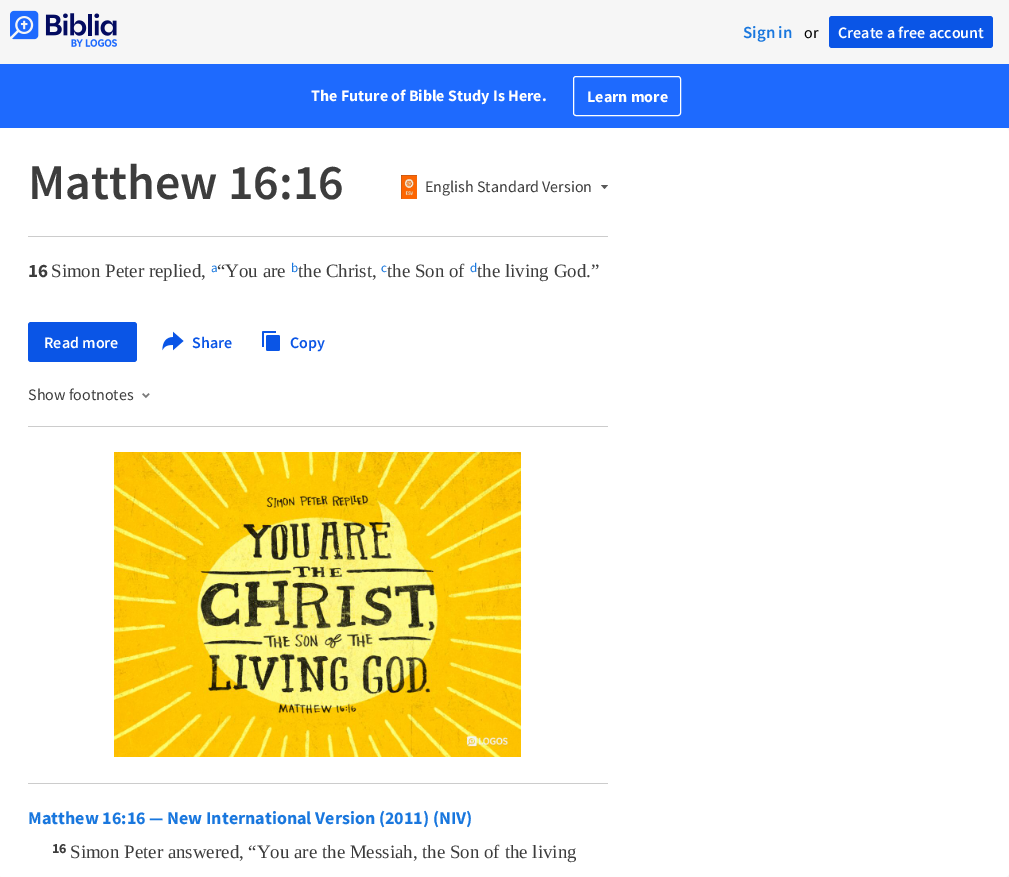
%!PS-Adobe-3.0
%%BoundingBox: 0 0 1009 877
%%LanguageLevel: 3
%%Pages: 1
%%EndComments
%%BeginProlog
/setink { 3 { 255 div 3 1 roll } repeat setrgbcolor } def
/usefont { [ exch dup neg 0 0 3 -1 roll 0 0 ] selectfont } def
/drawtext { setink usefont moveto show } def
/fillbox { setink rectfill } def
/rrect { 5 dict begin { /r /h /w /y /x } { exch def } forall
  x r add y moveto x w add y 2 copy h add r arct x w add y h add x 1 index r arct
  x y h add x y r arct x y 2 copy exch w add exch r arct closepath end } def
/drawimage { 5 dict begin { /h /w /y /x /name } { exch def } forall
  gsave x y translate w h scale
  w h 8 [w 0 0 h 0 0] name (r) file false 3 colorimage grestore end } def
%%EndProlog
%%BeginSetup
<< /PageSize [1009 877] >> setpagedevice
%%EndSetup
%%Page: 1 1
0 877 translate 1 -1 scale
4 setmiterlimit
0 0 1009 877 246 246 246 fillbox
(assets/img1.rgb) 10 10 107 37 drawimage
(Sign in) 743 38 /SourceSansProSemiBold-SemiBold 17 25 119 222 drawtext
(or) 804 38 /SourceSansPro-Regular 16 0 0 0 drawtext
10 85 230 setink
829 16 164 32 3 rrect fill
(Create a free account) 838 38 /SourceSansProSemiBold-SemiBold 16 255 255 255 drawtext
0 64 1009 64 30 106 254 fillbox
(The Future of Bible Study Is Here.) 311 101 /SourceSansPro-Bold 16 255 255 255 drawtext
573.5 76.5 107 39 2.5 rrect stroke
(Learn more) 587 102 /SourceSansPro-Bold 16 255 255 255 drawtext
-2 128 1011 749 4 rrect fill
28 236 580 1 204 204 204 fillbox
(Matthew 16:16) 28 199 /SourceSansProSemiBold-SemiBold 50 61 61 61 drawtext
(assets/img2.rgb) 401 175 16 24 drawimage
(English Standard Version) 425 192 /SourceSansPro-Regular 16 61 61 61 drawtext
88 88 88 setink
604.5 189 moveto 608 185 lineto 601 185 lineto closepath eofill
(16) 28 277 /SourceSansPro-Bold 18.9 61 61 61 drawtext
(Simon Peter replied,) 51 277 /LiberationSerif-Regular 18.9 61 61 61 drawtext
(a) 211 272 /SourceSansPro-Regular 13 25 119 222 drawtext
(“You are) 217 277 /LiberationSerif-Regular 18.9 61 61 61 drawtext
(b) 291 272 /SourceSansPro-Regular 13 25 119 222 drawtext
(the Christ,) 298 277 /LiberationSerif-Regular 18.9 61 61 61 drawtext
(c) 381 272 /SourceSansPro-Regular 13 25 119 222 drawtext
(the Son of) 387 277 /LiberationSerif-Regular 18.9 61 61 61 drawtext
(d) 470 272 /SourceSansPro-Regular 13 25 119 222 drawtext
(the living God.”) 477 277 /LiberationSerif-Regular 18.9 61 61 61 drawtext
10 85 230 setink
28 322 109 40 3 rrect fill
(Read more) 44 348 /SourceSansProSemiBold-SemiBold 16 255 255 255 drawtext
(assets/img3.rgb) 162 331 22 20 drawimage
(Share) 192 348 /SourceSansProSemiBold-SemiBold 16 10 85 230 drawtext
(assets/img4.rgb) 262 331 18 20 drawimage
(Copy) 290 348 /SourceSansProSemiBold-SemiBold 16 10 85 230 drawtext
(Show footnotes) 28 400 /SourceSansPro-Regular 16 61 61 61 drawtext
(assets/img5.rgb) 142 393 8 6 drawimage
28 426 580 1 204 204 204 fillbox
(assets/img6.rgb) 114 452 407 305 drawimage
28 783 580 1 204 204 204 fillbox
(Matthew 16:16 — New International Version \(2011\) \(NIV\)) 28 824 /SourceSansPro-Bold 18 25 119 222 drawtext
(16) 52 853 /SourceSansPro-Bold 14 61 61 61 drawtext
(Simon Peter answered, “You are the Messiah, the Son of the living) 70 858 /LiberationSerif-Regular 18.9 61 61 61 drawtext
showpage
%%EOF
